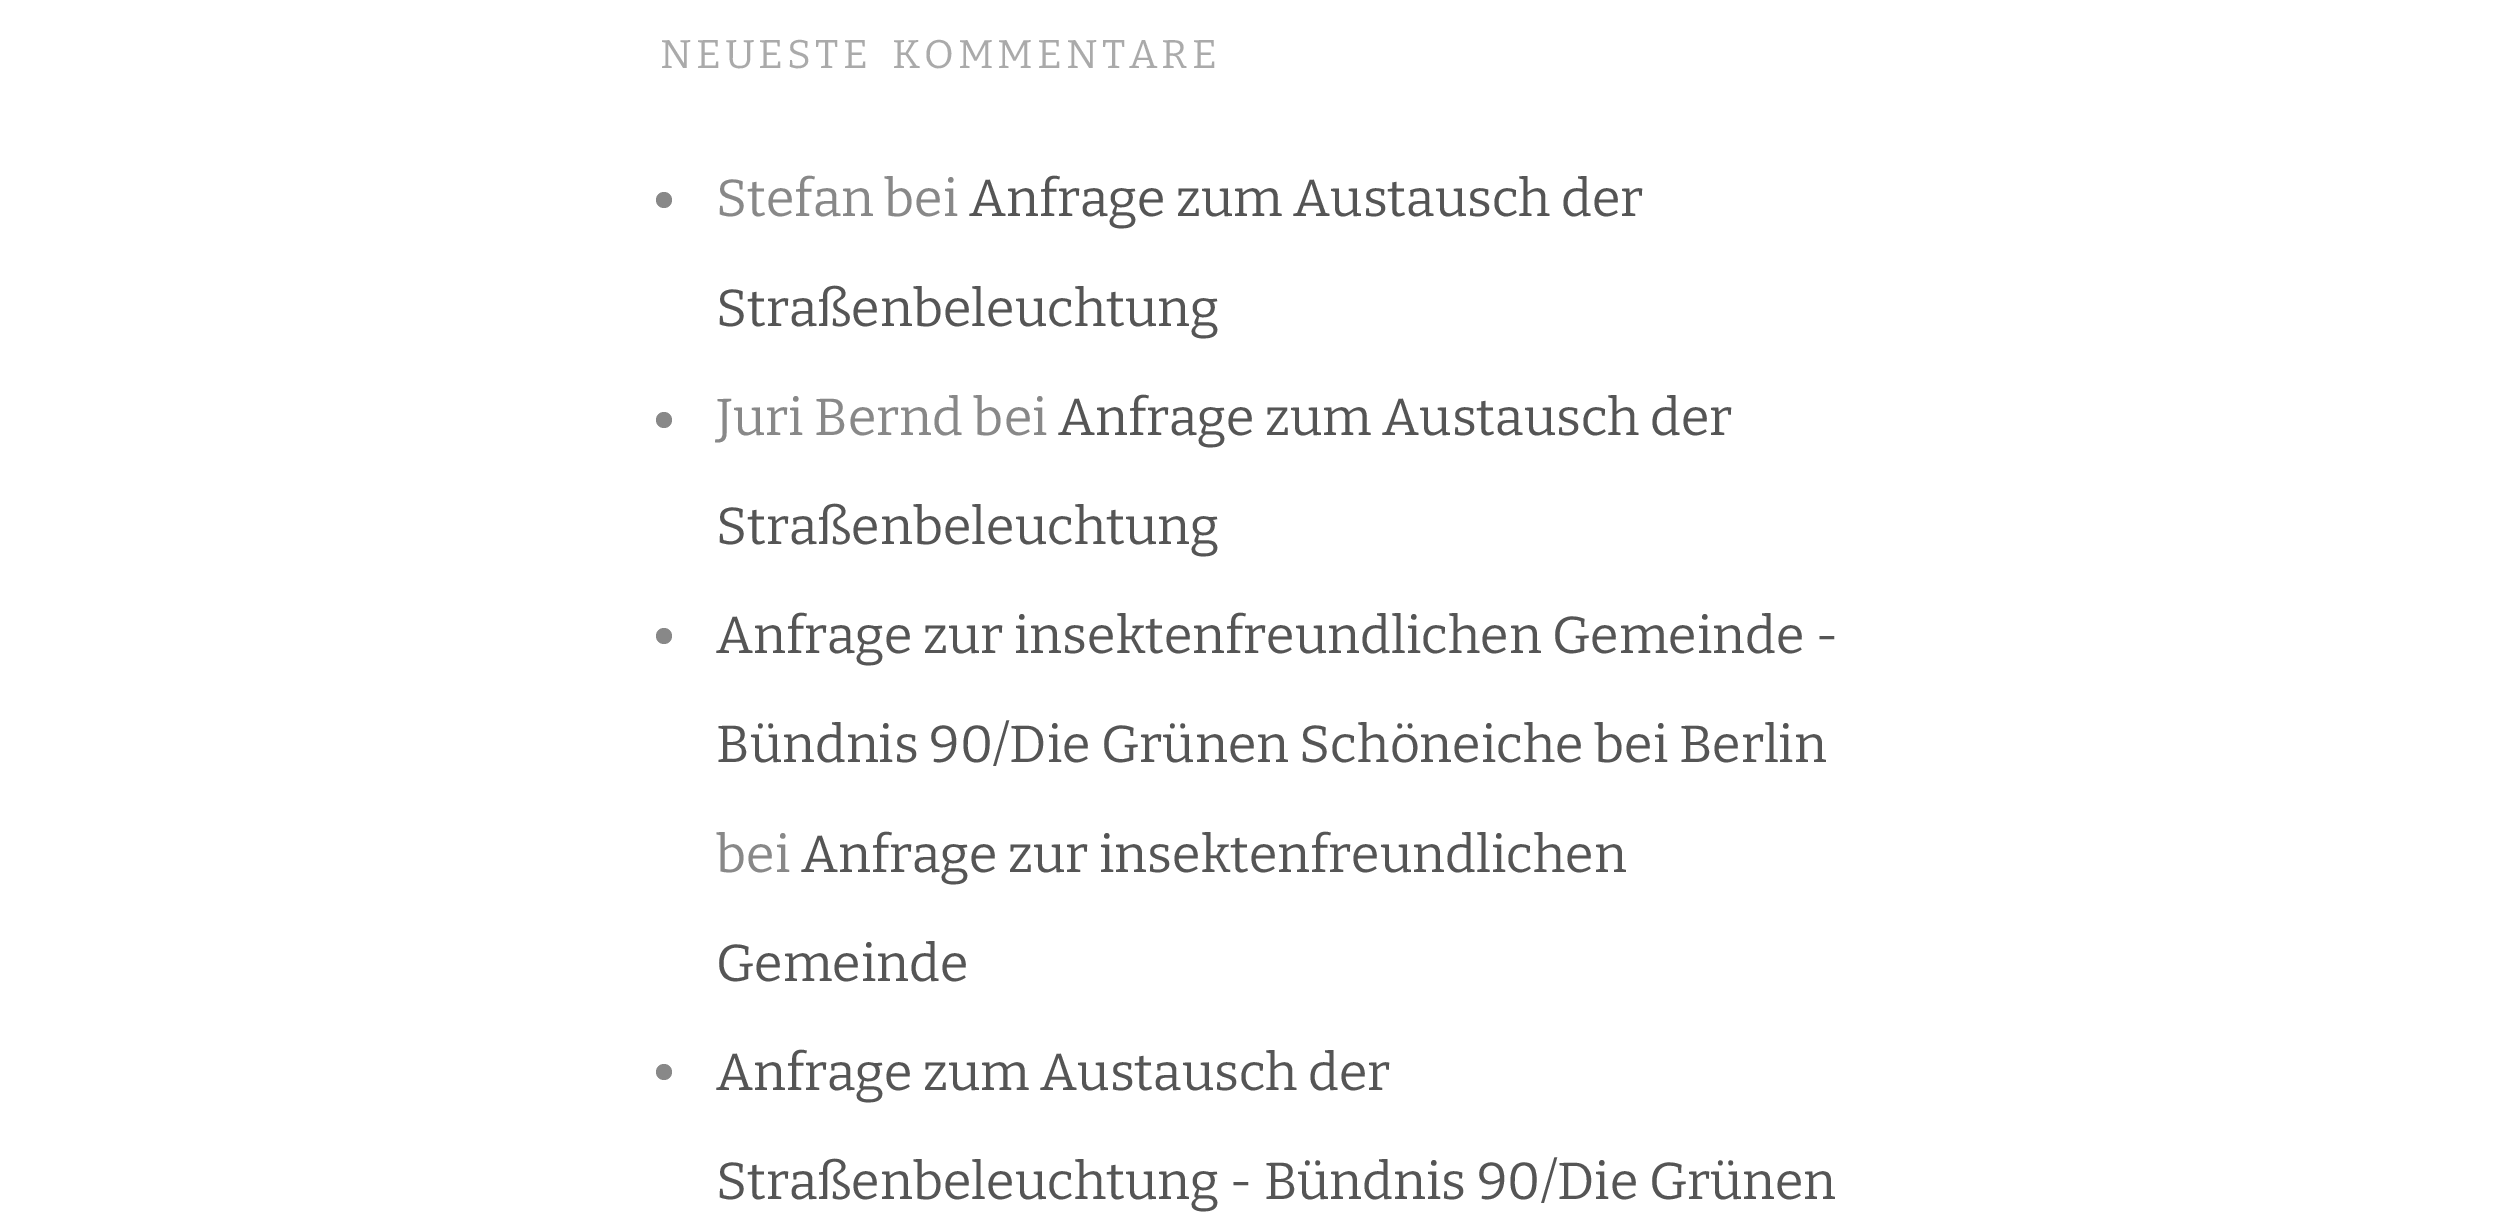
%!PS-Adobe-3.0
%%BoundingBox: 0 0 2519 1214
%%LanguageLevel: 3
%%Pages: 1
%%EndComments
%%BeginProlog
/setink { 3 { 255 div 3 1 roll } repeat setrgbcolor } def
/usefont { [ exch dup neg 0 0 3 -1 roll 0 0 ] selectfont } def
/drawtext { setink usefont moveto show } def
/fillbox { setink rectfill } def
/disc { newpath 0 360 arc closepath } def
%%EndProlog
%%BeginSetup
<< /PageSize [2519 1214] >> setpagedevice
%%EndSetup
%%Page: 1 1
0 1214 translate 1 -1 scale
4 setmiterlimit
0 0 2519 1214 255 255 255 fillbox
/Bitter-Regular 40 usefont
170 170 170 setink
660 68 moveto 8 0 32 4 0 (NEUESTE KOMMENTARE) awidthshow
136 136 136 setink
664 200 8 disc fill
(Stefan bei) 716 216 /Bitter-Regular 52 136 136 136 drawtext
(Anfrage zum Austausch der) 969 216 /Bitter-Regular 52 85 85 85 drawtext
(Straßenbeleuchtung) 716 326 /Bitter-Regular 52 85 85 85 drawtext
136 136 136 setink
664 420 8 disc fill
(Juri Bernd bei) 716 435 /Bitter-Regular 52 136 136 136 drawtext
(Anfrage zum Austausch der) 1058 435 /Bitter-Regular 52 85 85 85 drawtext
(Straßenbeleuchtung) 716 544 /Bitter-Regular 52 85 85 85 drawtext
136 136 136 setink
664 636 8 disc fill
(Anfrage zur insektenfreundlichen Gemeinde -) 716 653 /Bitter-Regular 52 85 85 85 drawtext
(Bündnis 90/Die Grünen Schöneiche bei Berlin) 716 762 /Bitter-Regular 52 85 85 85 drawtext
(bei) 716 872 /Bitter-Regular 52 136 136 136 drawtext
(Anfrage zur insektenfreundlichen) 801 872 /Bitter-Regular 52 85 85 85 drawtext
(Gemeinde) 716 981 /Bitter-Regular 52 85 85 85 drawtext
136 136 136 setink
664 1072 8 disc fill
(Anfrage zum Austausch der) 716 1090 /Bitter-Regular 52 85 85 85 drawtext
(Straßenbeleuchtung - Bündnis 90/Die Grünen) 716 1199 /Bitter-Regular 52 85 85 85 drawtext
showpage
%%EOF
